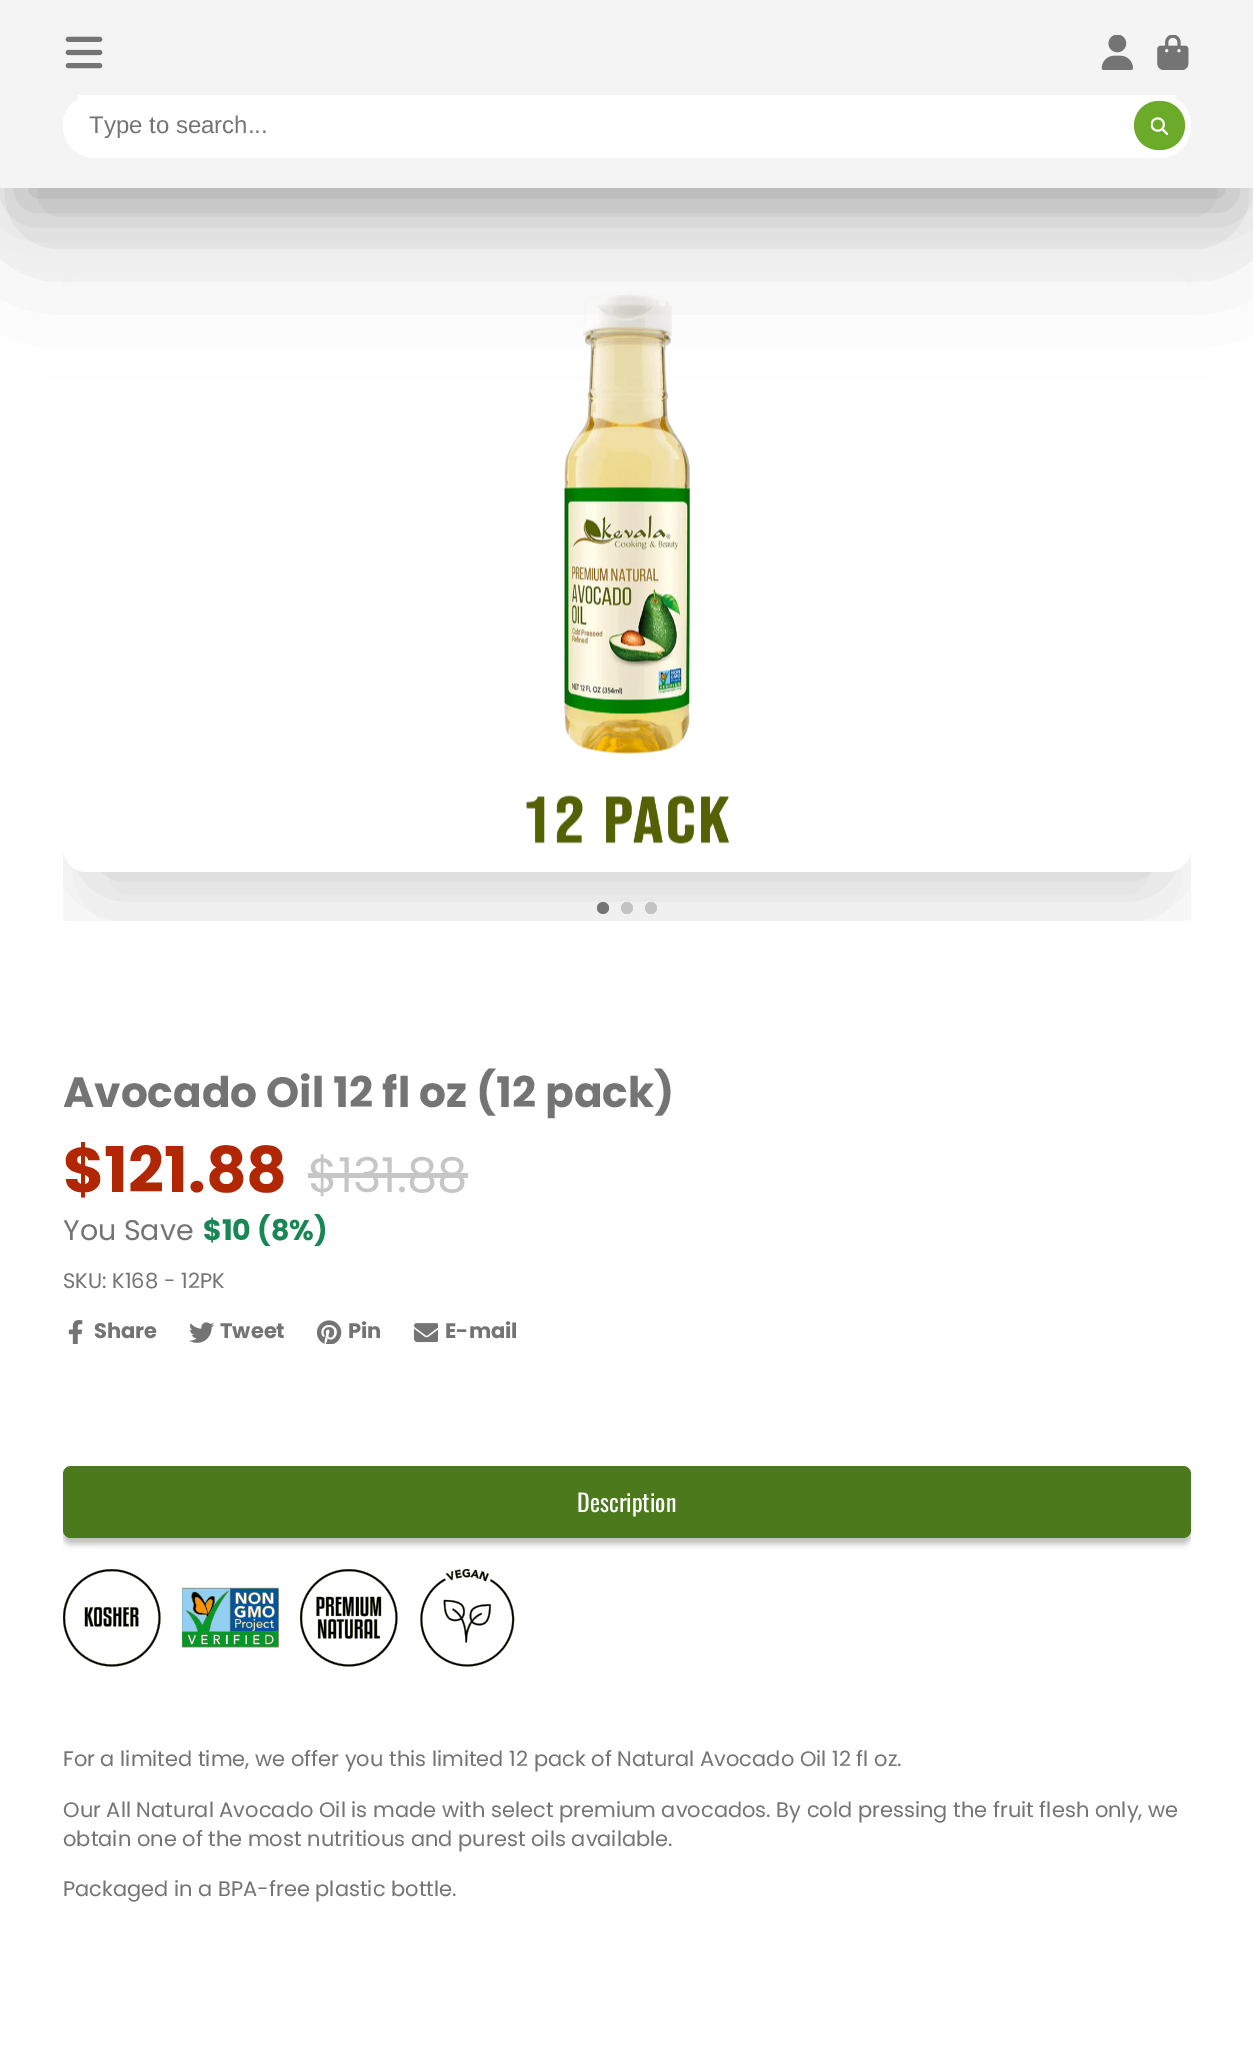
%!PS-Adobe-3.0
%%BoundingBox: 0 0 1253 2045
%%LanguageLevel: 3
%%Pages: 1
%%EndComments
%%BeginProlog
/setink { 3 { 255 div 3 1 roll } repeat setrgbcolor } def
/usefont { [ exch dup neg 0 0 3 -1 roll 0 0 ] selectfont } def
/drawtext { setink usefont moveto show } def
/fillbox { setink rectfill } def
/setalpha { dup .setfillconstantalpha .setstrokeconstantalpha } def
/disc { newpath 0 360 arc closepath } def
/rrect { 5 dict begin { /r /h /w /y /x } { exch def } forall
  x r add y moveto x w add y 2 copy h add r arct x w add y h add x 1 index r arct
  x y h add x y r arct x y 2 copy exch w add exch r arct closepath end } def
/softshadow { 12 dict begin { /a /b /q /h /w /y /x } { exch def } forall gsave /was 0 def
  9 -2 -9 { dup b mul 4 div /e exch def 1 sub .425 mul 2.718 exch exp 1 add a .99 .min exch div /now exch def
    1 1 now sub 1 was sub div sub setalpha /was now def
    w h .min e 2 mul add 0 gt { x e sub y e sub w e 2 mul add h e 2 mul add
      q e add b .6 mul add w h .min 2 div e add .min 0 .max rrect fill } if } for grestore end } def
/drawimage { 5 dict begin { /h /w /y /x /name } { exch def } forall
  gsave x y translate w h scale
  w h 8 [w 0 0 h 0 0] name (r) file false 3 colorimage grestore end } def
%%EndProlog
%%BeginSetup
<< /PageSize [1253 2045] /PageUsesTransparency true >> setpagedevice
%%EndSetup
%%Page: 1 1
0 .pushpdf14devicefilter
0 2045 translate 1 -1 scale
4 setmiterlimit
0 0 1253 2045 255 255 255 fillbox
116 116 116 setink
603 908 6 disc fill
204 204 204 setink
627 908 6 disc fill
651 908 6 disc fill
gsave
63 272 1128 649 rectclip
103 103 103 setink
102 351 1050 521 0 39.5 0.3 softshadow
90 363 1076 548 0 65.5 0.1 softshadow
grestore
255 255 255 setink
63 272 1128 600 24 rrect fill
(assets/img5.rgb) 526 292 203 552 drawimage
103 103 103 setink
21 60 1212 146 0 29 0.4 softshadow
21 87 1212 146 0 65.5 0.3 softshadow
0 0 1253 188 244 244 244 fillbox
(assets/img1.rgb) 65 36 38 33 drawimage
(assets/img2.rgb) 1101 35 32 35 drawimage
(assets/img3.rgb) 1157 35 32 35 drawimage
255 255 255 setink
63 95 1128 60 30 rrect fill
78 95 1098 60 255 255 255 fillbox
63 95 1128 63 31.5 rrect fill
(Type to search...) 89 133 /LiberationSans-Regular 24 116 116 116 drawtext
108 170 41 setink
1134 101 51 49 24.5 rrect fill
(assets/img4.rgb) 1151 117 17 18 drawimage
(Avocado Oil 12 fl oz \(12 pack\)) 63 1107 /Poppins-Bold 42.25 116 116 116 drawtext
($121.88) 63 1192 /Poppins-Bold 63 177 39 4 drawtext
($131.88) 308 1192 /Poppins-Regular 48 198 198 198 drawtext
308 1173 160 5 198 198 198 fillbox
(You Save) 63 1240 /Poppins-Regular 28.5 116 116 116 drawtext
($10 \(8%\)) 203 1240 /Poppins-Bold 28.5 25 135 84 drawtext
(SKU: K168 - 12PK) 63 1288 /Poppins-Regular 21 116 116 116 drawtext
(assets/img6.rgb) 68 1320 15 24 drawimage
(Share) 94 1338 /Poppins-Bold 21 116 116 116 drawtext
(assets/img7.rgb) 189 1322 25 21 drawimage
(Tweet) 220 1338 /Poppins-Bold 21 116 116 116 drawtext
(assets/img8.rgb) 317 1320 25 24 drawimage
(Pin) 348 1338 /Poppins-Bold 21 116 116 116 drawtext
(assets/img9.rgb) 414 1323 24 20 drawimage
(E-mail) 445 1338 /Poppins-Bold 21 116 116 116 drawtext
gsave
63 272 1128 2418 rectclip
0 0 0 setink
63 1472 1128 72 8 3 0.25 softshadow
grestore
76 121 28 setink
63 1466 1128 72 8 rrect fill
(Description) 577 1512 /Oswald-Regular 24 255 255 255 drawtext
(assets/img10.rgb) 63 1569 98 98 drawimage
(assets/img11.rgb) 182 1587 97 61 drawimage
(assets/img12.rgb) 300 1569 98 98 drawimage
(assets/img13.rgb) 420 1569 95 98 drawimage
(For a limited time, we offer you this limited 12 pack of Natural Avocado Oil 12 fl oz.) 63 1766 /Poppins-Regular 21 116 116 116 drawtext
(Our All Natural Avocado Oil is made with select premium avocados. By cold pressing the fruit flesh only, we) 63 1817 /Poppins-Regular 21 116 116 116 drawtext
(obtain one of the most nutritious and purest oils available.) 63 1846 /Poppins-Regular 21 116 116 116 drawtext
(Packaged in a BPA-free plastic bottle.) 63 1896 /Poppins-Regular 21 116 116 116 drawtext
.poppdf14devicefilter showpage
%%EOF
